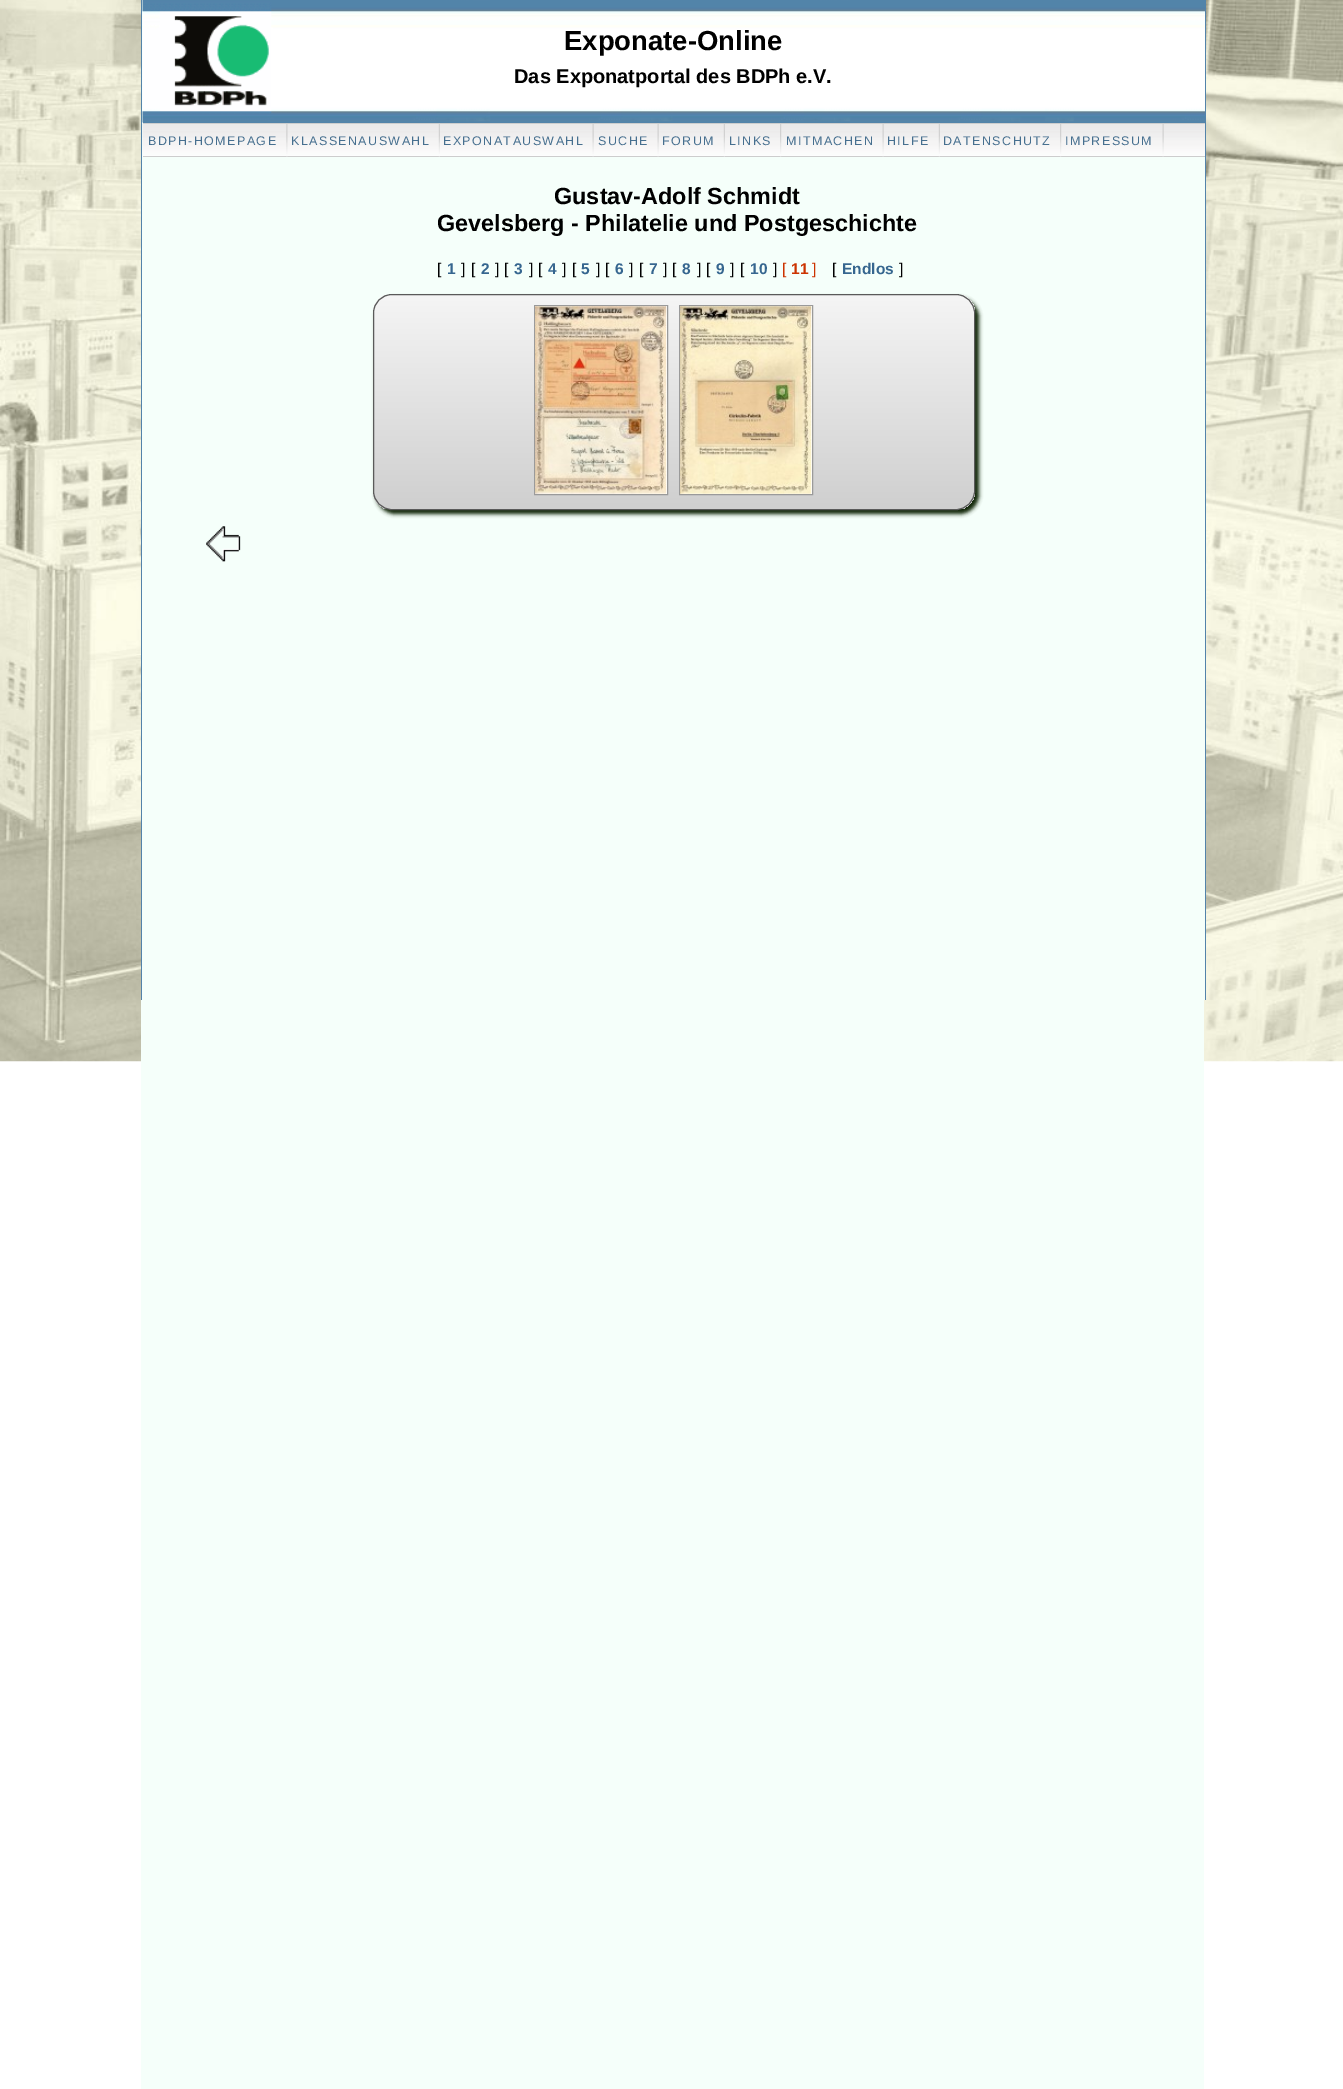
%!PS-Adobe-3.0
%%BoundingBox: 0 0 1343 2089
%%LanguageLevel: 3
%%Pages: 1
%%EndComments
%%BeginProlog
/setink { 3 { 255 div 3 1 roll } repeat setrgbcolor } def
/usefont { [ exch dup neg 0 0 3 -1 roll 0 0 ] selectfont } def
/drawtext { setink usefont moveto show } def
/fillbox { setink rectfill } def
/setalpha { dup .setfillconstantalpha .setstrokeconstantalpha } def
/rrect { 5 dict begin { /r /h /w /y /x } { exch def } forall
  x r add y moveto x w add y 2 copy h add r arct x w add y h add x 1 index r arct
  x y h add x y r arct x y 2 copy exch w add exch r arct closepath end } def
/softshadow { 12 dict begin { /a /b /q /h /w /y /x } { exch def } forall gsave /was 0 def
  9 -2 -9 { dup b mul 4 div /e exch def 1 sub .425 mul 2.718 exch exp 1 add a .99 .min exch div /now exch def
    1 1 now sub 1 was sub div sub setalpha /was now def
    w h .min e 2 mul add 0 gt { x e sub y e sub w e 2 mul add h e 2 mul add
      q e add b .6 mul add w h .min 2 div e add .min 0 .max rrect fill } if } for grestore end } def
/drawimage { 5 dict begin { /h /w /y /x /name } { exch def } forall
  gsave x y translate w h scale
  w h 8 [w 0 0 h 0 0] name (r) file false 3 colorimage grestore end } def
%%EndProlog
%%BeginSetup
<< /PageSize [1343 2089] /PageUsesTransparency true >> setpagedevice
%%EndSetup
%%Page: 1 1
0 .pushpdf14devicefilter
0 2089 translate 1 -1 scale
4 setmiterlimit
0 0 1343 2089 255 255 255 fillbox
(assets/img1.rgb) 0 0 1343 1062 drawimage
141 1000 1063 1089 245 255 250 fillbox
142 0 1063 1000 245 255 250 fillbox
1205 0 1 1000 83 131 170 fillbox
141 0 1 1000 83 131 170 fillbox
143 122 1062 1 83 131 170 fillbox
(assets/img2.rgb) 142 0 1063 123 drawimage
(Exponate-Online) 564 50 /LiberationSans-Bold 27.5 0 0 0 drawtext
(Das Exponatportal des BDPh e.V.) 514 83 /LiberationSans-Bold 20 0 0 0 drawtext
(assets/img3.rgb) 142 123 1063 34 drawimage
143 123 1062 1 205 205 205 fillbox
143 156 1062 1 205 205 205 fillbox
(assets/img4.rgb) 286 124 2 33 drawimage
/LiberationSans-Regular 12.5 usefont
70 111 143 setink
148 145 moveto 1.4 0 (BDPH-HOMEPAGE) ashow
(assets/img5.rgb) 438 124 2 33 drawimage
291 145 moveto 1.4 0 (KLASSENAUSWAHL) ashow
(assets/img6.rgb) 592 124 2 33 drawimage
443 145 moveto 1.4 0 (EXPONATAUSWAHL) ashow
(assets/img6.rgb) 657 124 2 33 drawimage
598 145 moveto 1.4 0 (SUCHE) ashow
(assets/img5.rgb) 723 124 2 33 drawimage
662 145 moveto 1.4 0 (FORUM) ashow
(assets/img7.rgb) 780 124 2 33 drawimage
729 145 moveto 1.4 0 (LINKS) ashow
(assets/img6.rgb) 882 124 2 33 drawimage
786 145 moveto 1.4 0 (MITMACHEN) ashow
(assets/img5.rgb) 938 124 2 33 drawimage
887 145 moveto 1.4 0 (HILFE) ashow
(assets/img7.rgb) 1060 124 2 33 drawimage
943 145 moveto 1.4 0 (DATENSCHUTZ) ashow
(assets/img6.rgb) 1162 124 2 33 drawimage
1065 145 moveto 1.4 0 (IMPRESSUM) ashow
(Gustav-Adolf Schmidt) 554 204 /LiberationSans-Bold 23.4 0 0 0 drawtext
(Gevelsberg - Philatelie und Postgeschichte) 437 231 /LiberationSans-Bold 23.4 0 0 0 drawtext
([) 437 274 /LiberationSans-Regular 15.5 0 0 0 drawtext
(1) 447 274 /LiberationSans-Bold 15.5 54 102 143 drawtext
(]) 461 274 /LiberationSans-Regular 15.5 0 0 0 drawtext
([) 471 274 /LiberationSans-Regular 15.5 0 0 0 drawtext
(2) 481 274 /LiberationSans-Bold 15.5 54 102 143 drawtext
(]) 495 274 /LiberationSans-Regular 15.5 0 0 0 drawtext
([) 504 274 /LiberationSans-Regular 15.5 0 0 0 drawtext
(3) 514 274 /LiberationSans-Bold 15.5 54 102 143 drawtext
(]) 529 274 /LiberationSans-Regular 15.5 0 0 0 drawtext
([) 538 274 /LiberationSans-Regular 15.5 0 0 0 drawtext
(4) 548 274 /LiberationSans-Bold 15.5 54 102 143 drawtext
(]) 562 274 /LiberationSans-Regular 15.5 0 0 0 drawtext
([) 572 274 /LiberationSans-Regular 15.5 0 0 0 drawtext
(5) 581 274 /LiberationSans-Bold 15.5 54 102 143 drawtext
(]) 596 274 /LiberationSans-Regular 15.5 0 0 0 drawtext
([) 605 274 /LiberationSans-Regular 15.5 0 0 0 drawtext
(6) 615 274 /LiberationSans-Bold 15.5 54 102 143 drawtext
(]) 629 274 /LiberationSans-Regular 15.5 0 0 0 drawtext
([) 639 274 /LiberationSans-Regular 15.5 0 0 0 drawtext
(7) 649 274 /LiberationSans-Bold 15.5 54 102 143 drawtext
(]) 663 274 /LiberationSans-Regular 15.5 0 0 0 drawtext
([) 672 274 /LiberationSans-Regular 15.5 0 0 0 drawtext
(8) 682 274 /LiberationSans-Bold 15.5 54 102 143 drawtext
(]) 697 274 /LiberationSans-Regular 15.5 0 0 0 drawtext
([) 706 274 /LiberationSans-Regular 15.5 0 0 0 drawtext
(9) 716 274 /LiberationSans-Bold 15.5 54 102 143 drawtext
(]) 730 274 /LiberationSans-Regular 15.5 0 0 0 drawtext
([) 740 274 /LiberationSans-Regular 15.5 0 0 0 drawtext
(10) 750 274 /LiberationSans-Bold 15.5 54 102 143 drawtext
(]) 773 274 /LiberationSans-Regular 15.5 0 0 0 drawtext
([) 782 274 /LiberationSans-Regular 15.5 204 51 0 drawtext
(11) 791 274 /LiberationSans-Bold 15.5 204 51 0 drawtext
(]) 812 274 /LiberationSans-Regular 15.5 204 51 0 drawtext
([) 832 274 /LiberationSans-Regular 15.5 0 0 0 drawtext
(Endlos) 842 274 /LiberationSans-Bold 15.5 54 102 143 drawtext
(]) 899 274 /LiberationSans-Regular 15.5 0 0 0 drawtext
12 34 2 setink
376 298 603 216 19 2 1 softshadow
gsave
373 294 602 216 19 rrect clip newpath
gsave 373 295 moveto 975 295 lineto 975 509 lineto 373 509 lineto closepath clip newpath
<< /ShadingType 2 /ColorSpace /DeviceRGB /Coords [374 295 374 509] /Extend [true true] /Function << /FunctionType 2 /Domain [0 1] /C0 [0.961 0.961 0.961] /C1 [0.812 0.812 0.812] /N 1 >> >> shfill grestore
grestore
90 90 90 setink
373.5 294.5 601 215 18.5 rrect stroke
255 255 255 setink
534.5 305.5 moveto 667.5 305.5 lineto 667.5 494.5 lineto 534.5 494.5 lineto closepath gsave fill grestore
154 154 154 setink
stroke
255 255 255 setink
679.5 305.5 moveto 812.5 305.5 lineto 812.5 494.5 lineto 679.5 494.5 lineto closepath gsave fill grestore
154 154 154 setink
stroke
(assets/img8.rgb) 535 306 132 188 drawimage
(assets/img9.rgb) 680 306 132 188 drawimage
(assets/img10.rgb) 206 526 35 36 drawimage
.poppdf14devicefilter showpage
%%EOF
